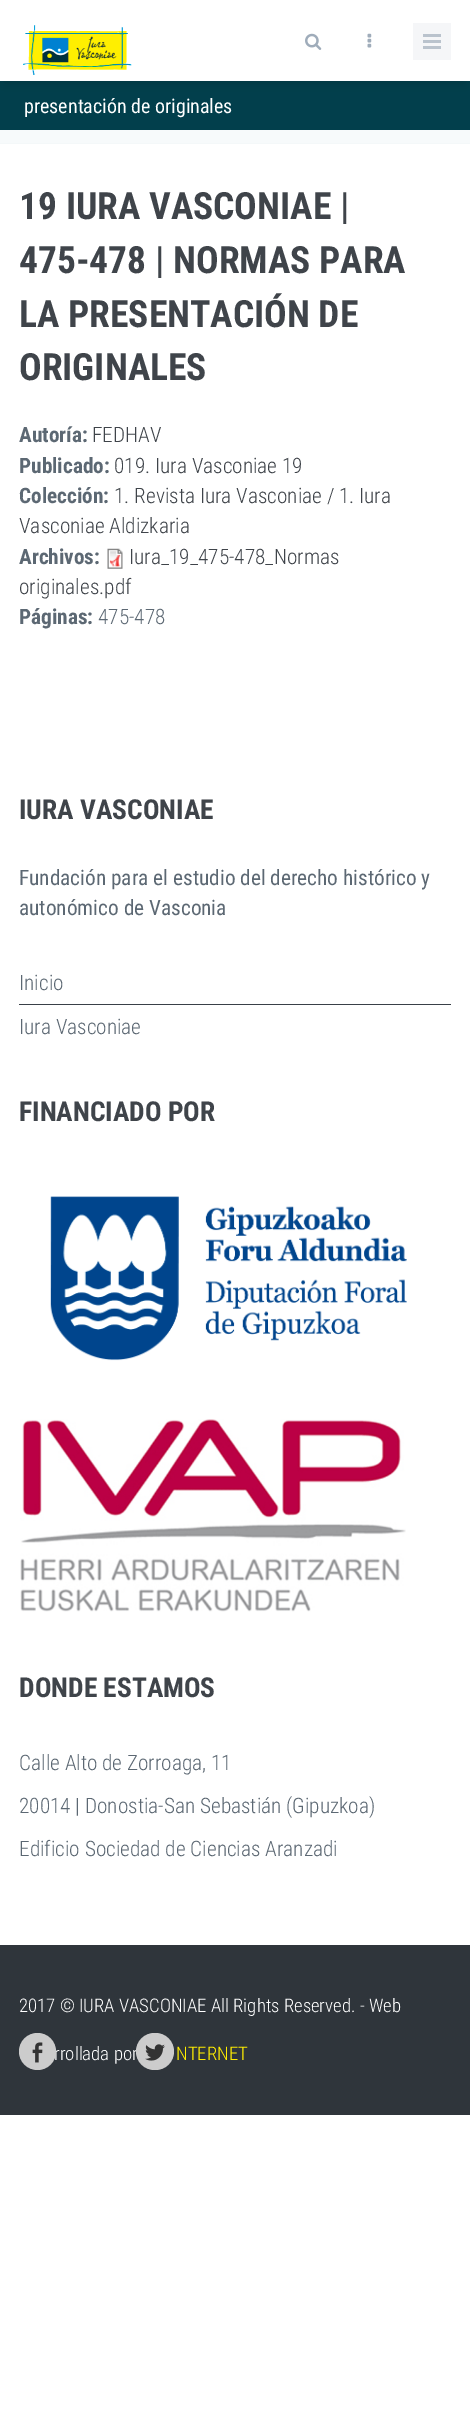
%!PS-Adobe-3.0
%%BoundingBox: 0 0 470 2412
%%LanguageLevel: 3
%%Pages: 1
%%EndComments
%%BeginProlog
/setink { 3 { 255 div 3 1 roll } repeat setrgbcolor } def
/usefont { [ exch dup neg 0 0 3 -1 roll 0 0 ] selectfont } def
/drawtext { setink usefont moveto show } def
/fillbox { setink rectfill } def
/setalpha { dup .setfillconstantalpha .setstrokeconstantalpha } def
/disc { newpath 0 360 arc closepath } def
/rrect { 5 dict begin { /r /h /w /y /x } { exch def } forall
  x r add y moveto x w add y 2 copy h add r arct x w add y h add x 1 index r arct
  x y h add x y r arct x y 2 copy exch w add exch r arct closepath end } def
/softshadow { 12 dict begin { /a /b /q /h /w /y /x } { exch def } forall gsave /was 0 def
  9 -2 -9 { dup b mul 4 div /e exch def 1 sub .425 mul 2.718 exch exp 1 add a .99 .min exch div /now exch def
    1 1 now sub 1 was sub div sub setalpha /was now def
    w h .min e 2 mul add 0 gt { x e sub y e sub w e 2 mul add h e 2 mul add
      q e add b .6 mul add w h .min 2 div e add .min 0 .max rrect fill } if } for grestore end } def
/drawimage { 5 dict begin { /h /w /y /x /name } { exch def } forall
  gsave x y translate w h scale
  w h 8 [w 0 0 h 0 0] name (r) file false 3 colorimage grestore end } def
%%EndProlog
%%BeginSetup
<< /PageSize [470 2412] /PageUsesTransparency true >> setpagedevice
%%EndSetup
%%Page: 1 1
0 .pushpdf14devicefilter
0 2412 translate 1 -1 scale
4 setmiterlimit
0 0 470 2412 255 255 255 fillbox
0 81 470 49 2 63 76 fillbox
0 0 0 setink
5 9 460 71 0 5.5 0.25 softshadow
0 0 470 81 255 255 255 fillbox
(assets/img1.rgb) 23 25 109 50 drawimage
(assets/img2.rgb) 305 33 17 17 drawimage
(assets/img3.rgb) 367 33 5 15 drawimage
413 23 38 37 245 246 248 fillbox
423 34 18 3 186 195 205 fillbox
423 40 18 3 186 195 205 fillbox
423 46 18 3 186 195 205 fillbox
0 130 470 13 247 250 251 fillbox
0 143 470 1 244 248 249 fillbox
(presentación de originales) 24 113 /RobotoCondensed-Regular 20 255 255 255 drawtext
(19 IURA VASCONIAE |) 19 219 /RobotoCondensed-Bold 37.5 63 68 74 drawtext
(475-478 | NORMAS PARA) 19 273 /RobotoCondensed-Bold 37.5 63 68 74 drawtext
(LA PRESENTACIÓN DE) 19 327 /RobotoCondensed-Bold 37.5 63 68 74 drawtext
(ORIGINALES) 19 380 /RobotoCondensed-Bold 37.5 63 68 74 drawtext
(Autoría:) 19 442 /RobotoCondensed-Bold 21.25 92 104 115 drawtext
(FEDHAV) 92 442 /RobotoCondensed-Light 21.25 63 68 74 drawtext
(Publicado:) 19 473 /RobotoCondensed-Bold 21.25 92 104 115 drawtext
(019. Iura Vasconiae 19) 114 473 /RobotoCondensed-Light 21.25 63 68 74 drawtext
(Colección:) 19 503 /RobotoCondensed-Bold 21.25 92 104 115 drawtext
(1. Revista Iura Vasconiae / 1. Iura) 114 503 /RobotoCondensed-Light 21.25 63 68 74 drawtext
(Vasconiae Aldizkaria) 19 533 /RobotoCondensed-Light 21.25 63 68 74 drawtext
(Archivos:) 19 564 /RobotoCondensed-Bold 21.25 92 104 115 drawtext
(assets/img4.rgb) 107 548 16 21 drawimage
(Iura_19_475-478_Normas) 129 564 /RobotoCondensed-Light 21.25 63 68 74 drawtext
(originales.pdf) 19 594 /RobotoCondensed-Light 21.25 63 68 74 drawtext
(Páginas:) 19 624 /RobotoCondensed-Bold 21.25 92 104 115 drawtext
(475-478) 98 624 /RobotoCondensed-Light 21.25 92 104 115 drawtext
(IURA VASCONIAE) 19 819 /RobotoCondensed-Bold 27.5 63 68 74 drawtext
(Fundación para el estudio del derecho histórico y) 19 885 /RobotoCondensed-Regular 21.25 92 104 115 drawtext
(autonómico de Vasconia) 19 915 /RobotoCondensed-Regular 21.25 92 104 115 drawtext
19 1004 432 1 57 64 71 fillbox
(Inicio) 19 990 /RobotoCondensed-Light 21.25 92 104 115 drawtext
(Iura Vasconiae) 19 1034 /RobotoCondensed-Light 21.25 92 104 115 drawtext
(FINANCIADO POR) 19 1121 /RobotoCondensed-Bold 27.5 63 68 74 drawtext
(assets/img5.rgb) 50 1196 357 165 drawimage
(assets/img6.rgb) 20 1419 386 193 drawimage
(DONDE ESTAMOS) 19 1697 /RobotoCondensed-Bold 27.5 63 68 74 drawtext
(Calle Alto de Zorroaga, 11) 19 1770 /RobotoCondensed-Light 21.25 92 104 115 drawtext
(20014 | Donostia-San Sebastián \(Gipuzkoa\)) 19 1813 /RobotoCondensed-Light 21.25 92 104 115 drawtext
(Edificio Sociedad de Ciencias Aranzadi) 19 1856 /RobotoCondensed-Light 21.25 92 104 115 drawtext
0 1945 470 170 47 53 59 fillbox
(2017 © IURA VASCONIAE All Rights Reserved. - Web) 19 2012 /RobotoCondensed-Light 18.75 255 255 255 drawtext
(rrollada por) 54 2060 /RobotoCondensed-Light 18.75 255 255 255 drawtext
(NTERNET) 176 2060 /RobotoCondensed-Light 18.75 255 237 0 drawtext
204 204 204 setink
37.5 2051.5 18.5 disc fill
(assets/img7.rgb) 32 2042 11 21 drawimage
136 2033 38 37 18.5 rrect fill
(assets/img8.rgb) 145 2044 20 17 drawimage
.poppdf14devicefilter showpage
%%EOF
